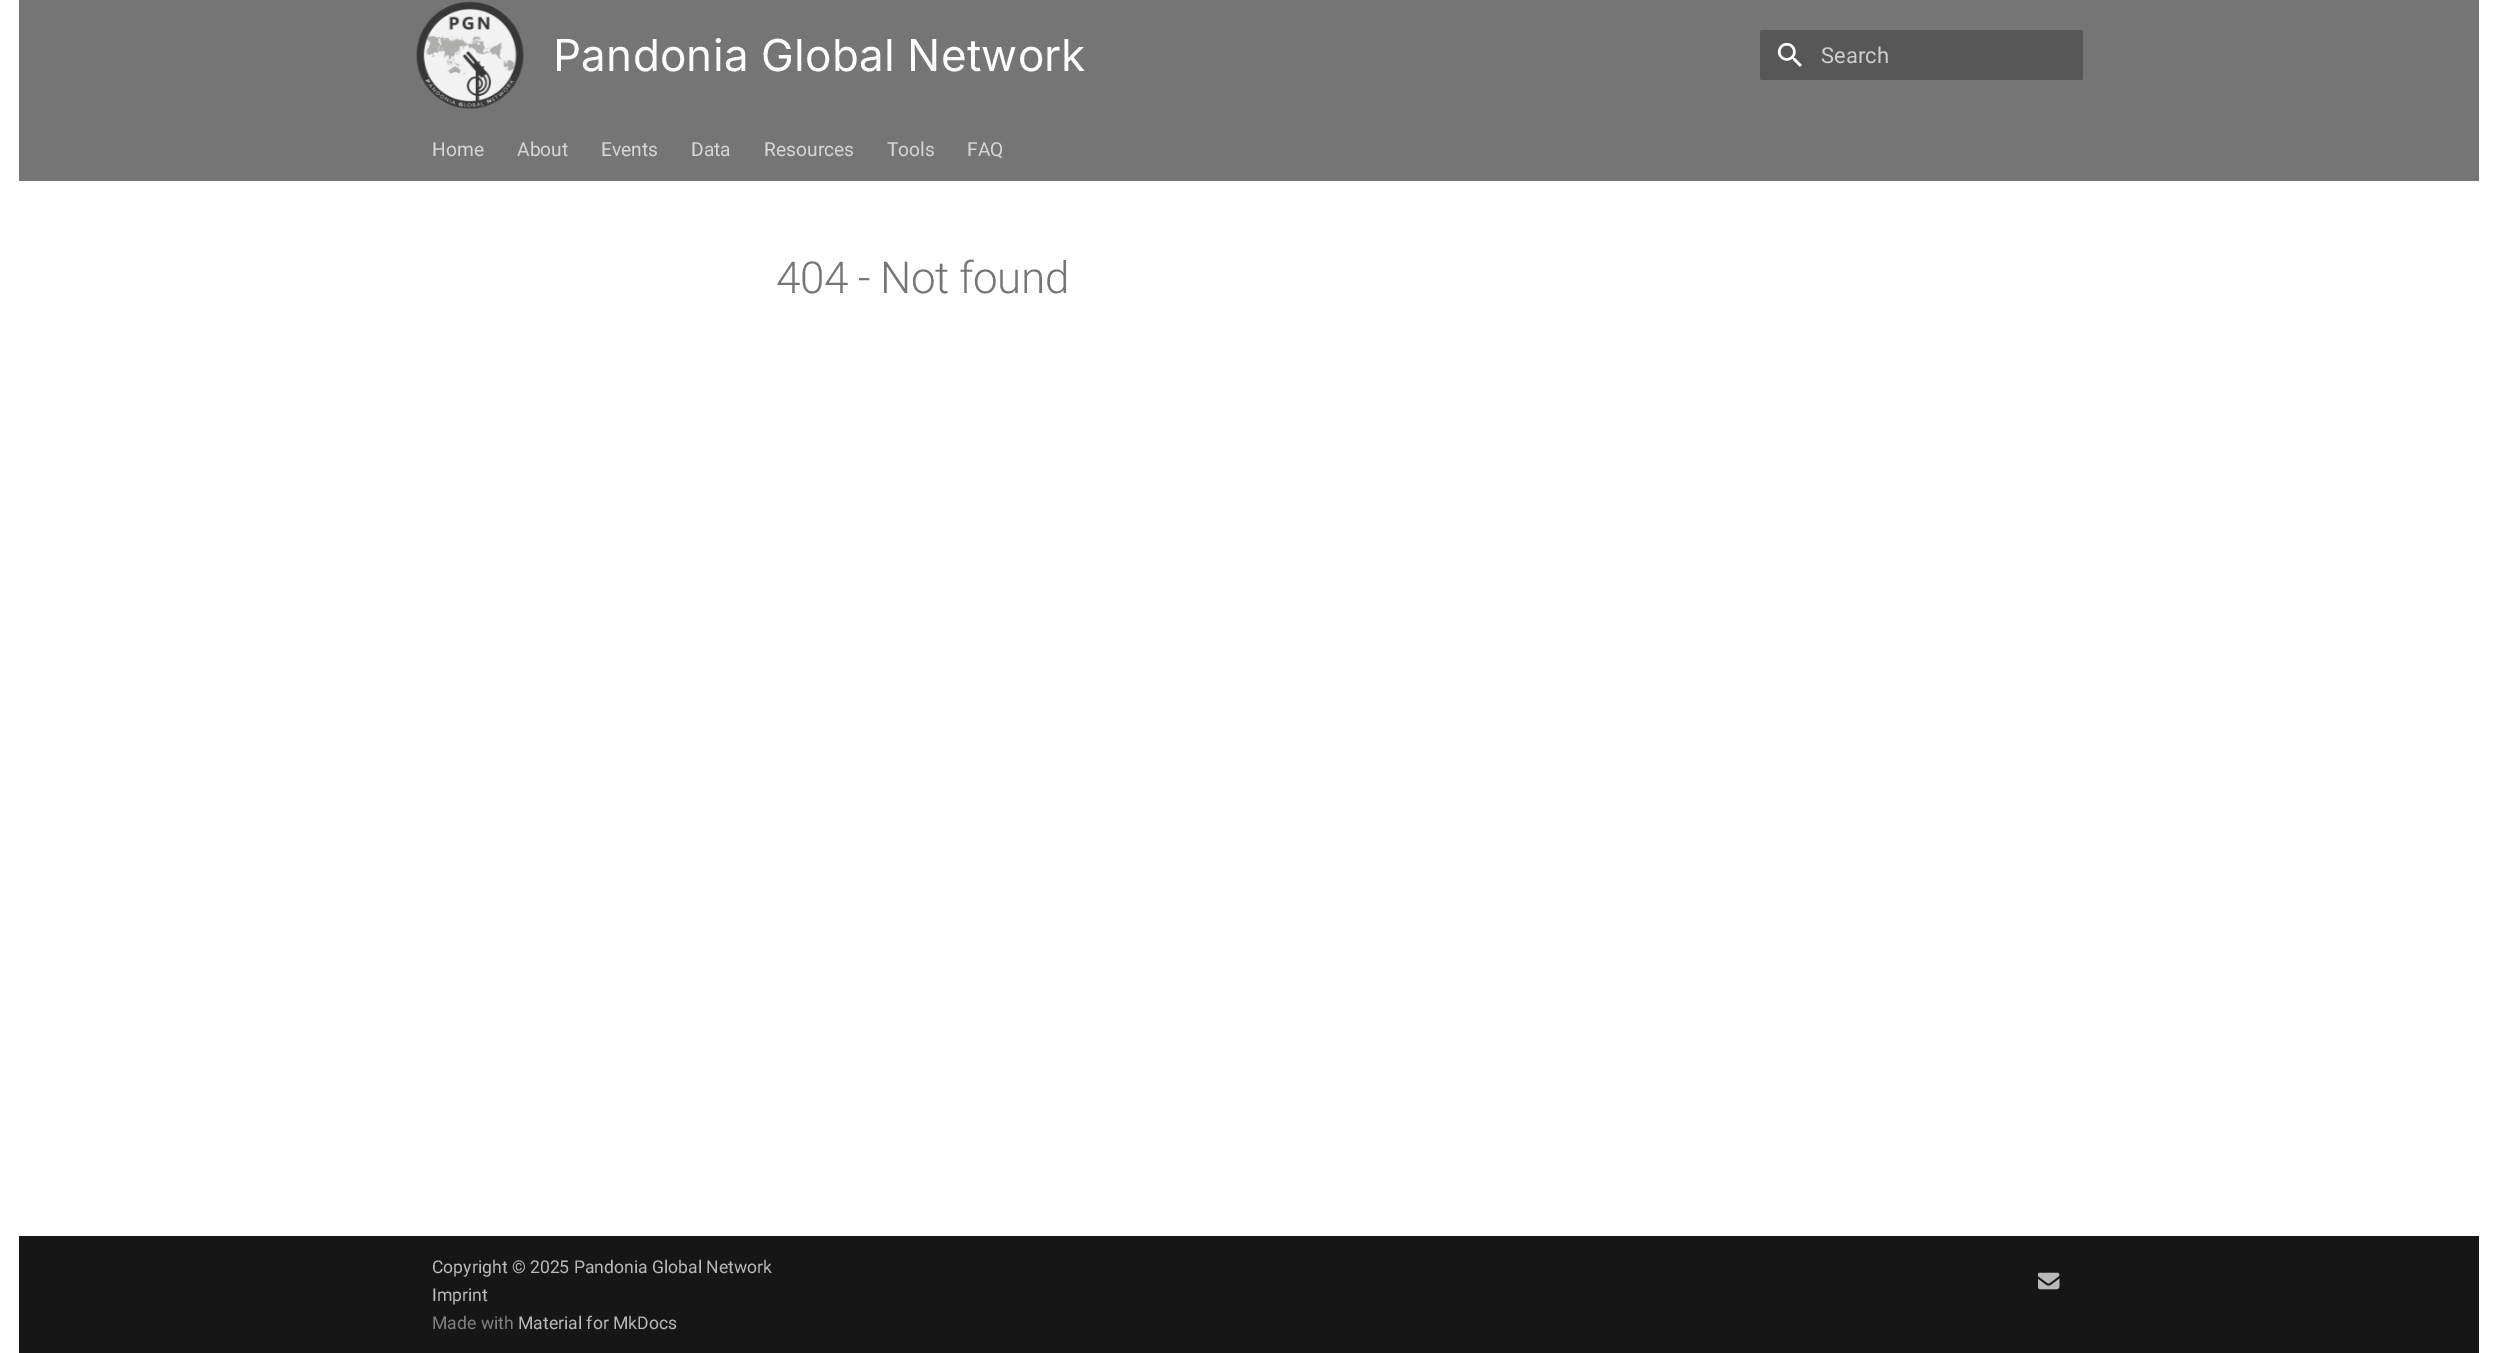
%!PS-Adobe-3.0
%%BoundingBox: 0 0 2497 1353
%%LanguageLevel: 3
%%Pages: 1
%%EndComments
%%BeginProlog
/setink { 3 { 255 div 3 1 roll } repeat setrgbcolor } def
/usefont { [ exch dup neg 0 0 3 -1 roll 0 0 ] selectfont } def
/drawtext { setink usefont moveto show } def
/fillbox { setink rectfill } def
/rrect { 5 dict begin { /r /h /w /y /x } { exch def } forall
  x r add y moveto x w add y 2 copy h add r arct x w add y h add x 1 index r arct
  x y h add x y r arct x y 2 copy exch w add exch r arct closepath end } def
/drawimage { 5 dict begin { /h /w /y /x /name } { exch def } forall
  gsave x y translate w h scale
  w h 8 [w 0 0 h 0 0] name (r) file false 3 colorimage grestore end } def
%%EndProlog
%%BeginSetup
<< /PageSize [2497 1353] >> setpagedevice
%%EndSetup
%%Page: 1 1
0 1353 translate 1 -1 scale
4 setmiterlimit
0 0 2497 1353 255 255 255 fillbox
19 0 2460 181 117 117 117 fillbox
(assets/img1.rgb) 416 1 108 108 drawimage
/Inter-Regular 44 usefont
255 255 255 setink
553 71 moveto 0.25 0 (Pandonia Global Network) ashow
87 87 87 setink
1760 30 323 50 2.5 rrect fill
(assets/img2.rgb) 1777 42 25 25 drawimage
(Search) 1821 63 /Roboto-Regular 22 205 205 205 drawtext
(Home) 432 156 /Roboto-Regular 19.25 214 214 214 drawtext
(About) 517 156 /Roboto-Regular 19.25 214 214 214 drawtext
(Events) 601 156 /Roboto-Regular 19.25 214 214 214 drawtext
(Data) 691 156 /Roboto-Regular 19.25 214 214 214 drawtext
(Resources) 764 156 /Roboto-Regular 19.25 214 214 214 drawtext
(Tools) 887 156 /Roboto-Regular 19.25 214 214 214 drawtext
(FAQ) 967 156 /Roboto-Regular 19.25 214 214 214 drawtext
/Roboto-Light 44 usefont
117 117 117 setink
776 293 moveto -0.5 0 (404 - Not found) ashow
19 1236 2460 117 22 22 22 fillbox
(Copyright © 2025 Pandonia Global Network) 432 1273 /Roboto-Regular 17.6 185 185 185 drawtext
(Imprint) 432 1301 /Roboto-Regular 17.6 185 185 185 drawtext
(Made with) 432 1329 /Roboto-Regular 17.6 127 127 127 drawtext
(Material for MkDocs) 518 1329 /Roboto-Regular 17.6 185 185 185 drawtext
(assets/img3.rgb) 2038 1272 22 18 drawimage
showpage
%%EOF
